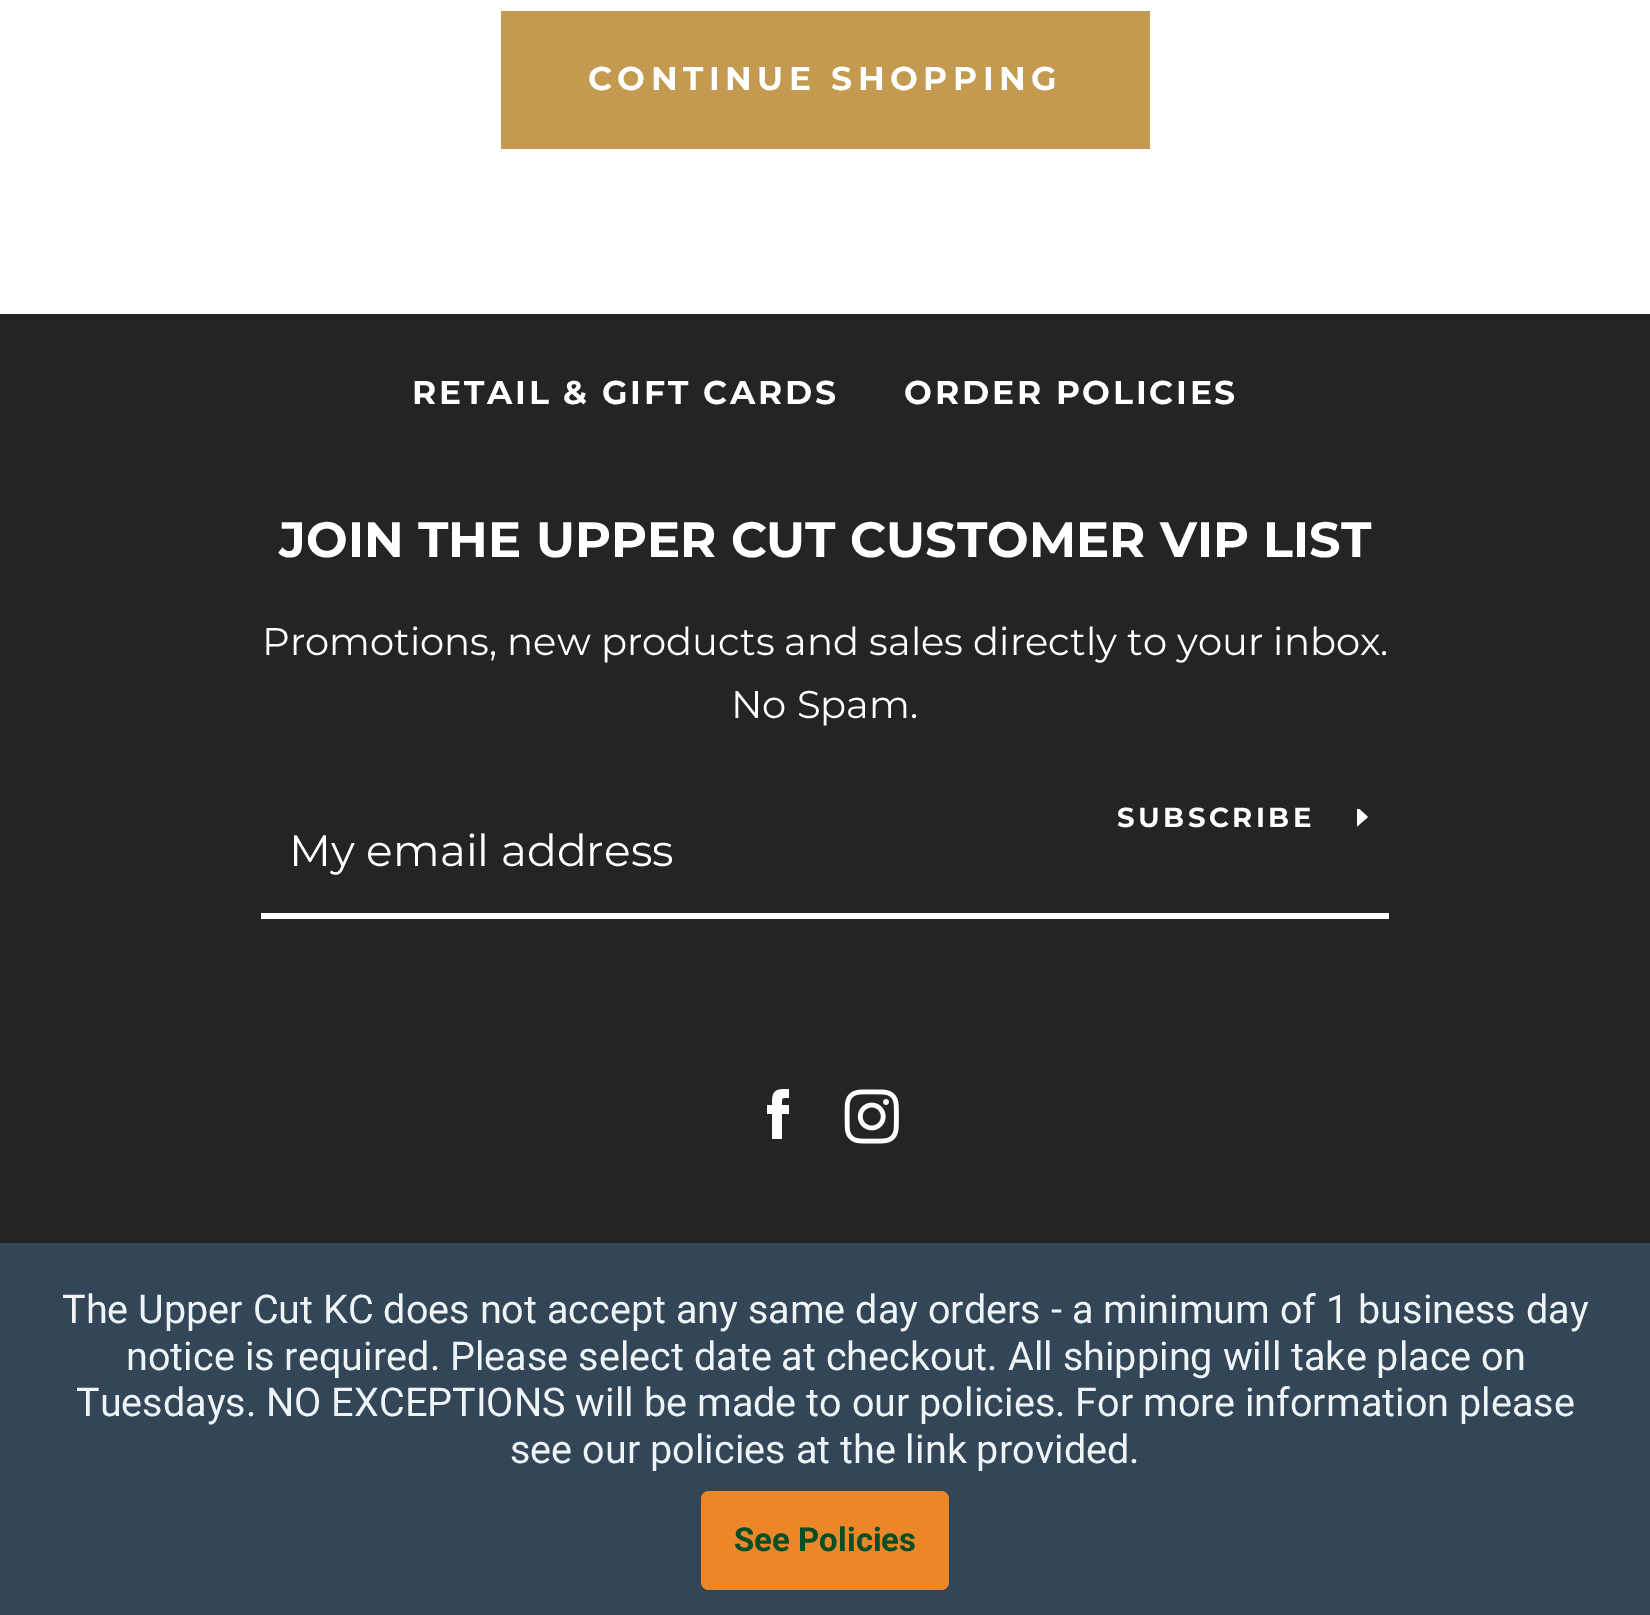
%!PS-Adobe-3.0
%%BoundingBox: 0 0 1650 1615
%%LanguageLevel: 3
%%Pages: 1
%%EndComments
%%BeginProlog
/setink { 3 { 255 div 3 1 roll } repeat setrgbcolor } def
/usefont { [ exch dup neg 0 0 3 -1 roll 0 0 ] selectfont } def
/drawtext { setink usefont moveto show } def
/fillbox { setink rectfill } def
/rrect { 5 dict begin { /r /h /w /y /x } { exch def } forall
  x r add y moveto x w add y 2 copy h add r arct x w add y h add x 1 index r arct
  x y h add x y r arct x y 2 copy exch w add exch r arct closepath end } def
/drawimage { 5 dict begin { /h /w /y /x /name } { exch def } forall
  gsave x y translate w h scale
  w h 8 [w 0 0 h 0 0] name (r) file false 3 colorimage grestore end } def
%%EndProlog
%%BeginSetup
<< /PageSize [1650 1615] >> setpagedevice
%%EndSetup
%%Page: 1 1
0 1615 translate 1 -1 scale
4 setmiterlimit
0 0 1650 1615 36 36 36 fillbox
0 0 1650 314 255 255 255 fillbox
501 11 649 138 195 154 79 fillbox
/Montserrat-Bold 33 usefont
255 255 255 setink
588 90 moveto 5.5 0 (CONTINUE SHOPPING) ashow
412 404 moveto 2.75 0 (RETAIL & GIFT CARDS) ashow
904 404 moveto 2.75 0 (ORDER POLICIES) ashow
(JOIN THE UPPER CUT CUSTOMER VIP LIST) 279 557 /Montserrat-Bold 49.5 255 255 255 drawtext
(Promotions, new products and sales directly to your inbox.) 262 655 /Montserrat-Regular 38.5 255 255 255 drawtext
(No Spam.) 731 718 /Montserrat-Regular 38.5 255 255 255 drawtext
261 913 1128 6 255 255 255 fillbox
/Montserrat-Bold 27.5 usefont
1117 827 moveto 3.5 0 (SUBSCRIBE) ashow
gsave
1315 809 55 19 rectclip
1368 817 moveto 1357 826.5 lineto 1357 807 lineto closepath fill
grestore
(My email address) 289 866 /Montserrat-Regular 44 255 255 255 drawtext
789 1105 moveto 782 1105 lineto 782 1097 781 1098 789 1098 curveto 789 1089 lineto 775 1089 772 1090 772 1105 curveto 767 1105 lineto 767 1114 lineto 772 1114 lineto 772 1139 lineto 782 1139 lineto 782 1114 lineto 789 1114 lineto closepath fill
(assets/img1.rgb) 844 1089 55 55 drawimage
0 1243 1650 372 51 70 88 fillbox
(The Upper Cut KC does not accept any same day orders - a minimum of 1 business day) 62 1323 /Roboto-Regular 39.6 239 244 247 drawtext
(notice is required. Please select date at checkout. All shipping will take place on) 126 1370 /Roboto-Regular 39.6 239 244 247 drawtext
(Tuesdays. NO EXCEPTIONS will be made to our policies. For more information please) 76 1416 /Roboto-Regular 39.6 239 244 247 drawtext
(see our policies at the link provided.) 510 1463 /Roboto-Regular 39.6 239 244 247 drawtext
235 134 41 setink
701 1491 248 99 8 rrect fill
(See Policies) 734 1551 /Roboto-Bold 33 6 79 38 drawtext
showpage
%%EOF
